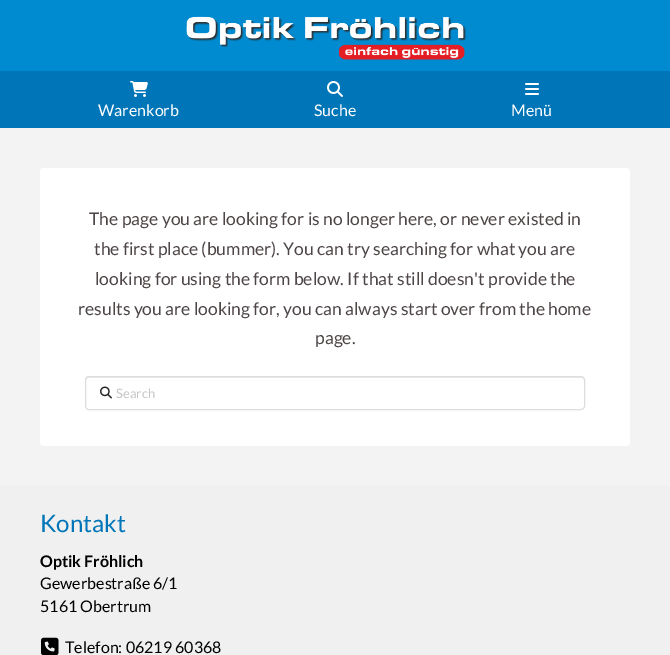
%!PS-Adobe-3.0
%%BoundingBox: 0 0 670 655
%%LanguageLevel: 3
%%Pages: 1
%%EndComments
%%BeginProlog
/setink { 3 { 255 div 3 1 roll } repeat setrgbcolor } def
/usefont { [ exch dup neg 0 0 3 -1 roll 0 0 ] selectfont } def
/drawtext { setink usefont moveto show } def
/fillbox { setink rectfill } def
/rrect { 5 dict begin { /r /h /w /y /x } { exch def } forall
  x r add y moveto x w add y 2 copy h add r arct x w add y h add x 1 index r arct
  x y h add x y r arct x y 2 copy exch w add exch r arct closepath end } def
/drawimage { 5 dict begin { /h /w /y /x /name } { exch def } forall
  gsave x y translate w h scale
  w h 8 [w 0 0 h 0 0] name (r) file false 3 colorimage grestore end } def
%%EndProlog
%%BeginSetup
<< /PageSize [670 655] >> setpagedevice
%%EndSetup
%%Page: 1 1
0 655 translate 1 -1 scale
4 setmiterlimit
0 0 670 655 243 243 243 fillbox
0 0 670 71 0 139 209 fillbox
(assets/img1.rgb) 186 16 280 44 drawimage
0 71 670 57 0 117 184 fillbox
(assets/img2.rgb) 130 81 18 16 drawimage
(Warenkorb) 98 116 /Lato-Regular 16 255 255 255 drawtext
(assets/img3.rgb) 327 81 16 16 drawimage
(Suche) 314 116 /Lato-Regular 16 255 255 255 drawtext
(assets/img4.rgb) 525 83 14 12 drawimage
(Menü) 511 116 /Lato-Regular 16 255 255 255 drawtext
40 168 590 278 4 rrect fill
(The page you are looking for is no longer here, or never existed in) 89 225 /Lato-Regular 17.5 78 70 70 drawtext
(the first place \(bummer\). You can try searching for what you are) 94 255 /Lato-Regular 17.5 78 70 70 drawtext
(looking for using the form below. If that still doesn't provide the) 95 285 /Lato-Regular 17.5 78 70 70 drawtext
(results you are looking for, you can always start over from the home) 78 315 /Lato-Regular 17.5 78 70 70 drawtext
(page.) 315 344 /Lato-Regular 17.5 78 70 70 drawtext
236 236 236 setink
89 378 moveto 581 378 lineto 583 378 584 379 584 381 curveto 584 379 583 377 581 377 curveto 89 377 lineto 87 377 86 379 86 381 curveto 86 379 87 378 89 378 curveto closepath fill
221 221 221 setink
85.5 376.5 499 33 3.5 rrect stroke
(assets/img5.rgb) 100 386 12 13 drawimage
(Search) 116 398 /Lato-Regular 13 197 197 197 drawtext
0 486 670 169 240 240 240 fillbox
(Kontakt) 40 532 /Lato-Regular 24 0 117 184 drawtext
(Optik Fröhlich) 40 567 /Lato-Bold 16 0 0 0 drawtext
(Gewerbestraße 6/1) 40 589 /Lato-Regular 16 0 0 0 drawtext
(5161 Obertrum) 40 612 /Lato-Regular 16 0 0 0 drawtext
(assets/img6.rgb) 41 637 18 18 drawimage
(Telefon: 06219 60368) 65 653 /Lato-Regular 16 0 0 0 drawtext
showpage
%%EOF
